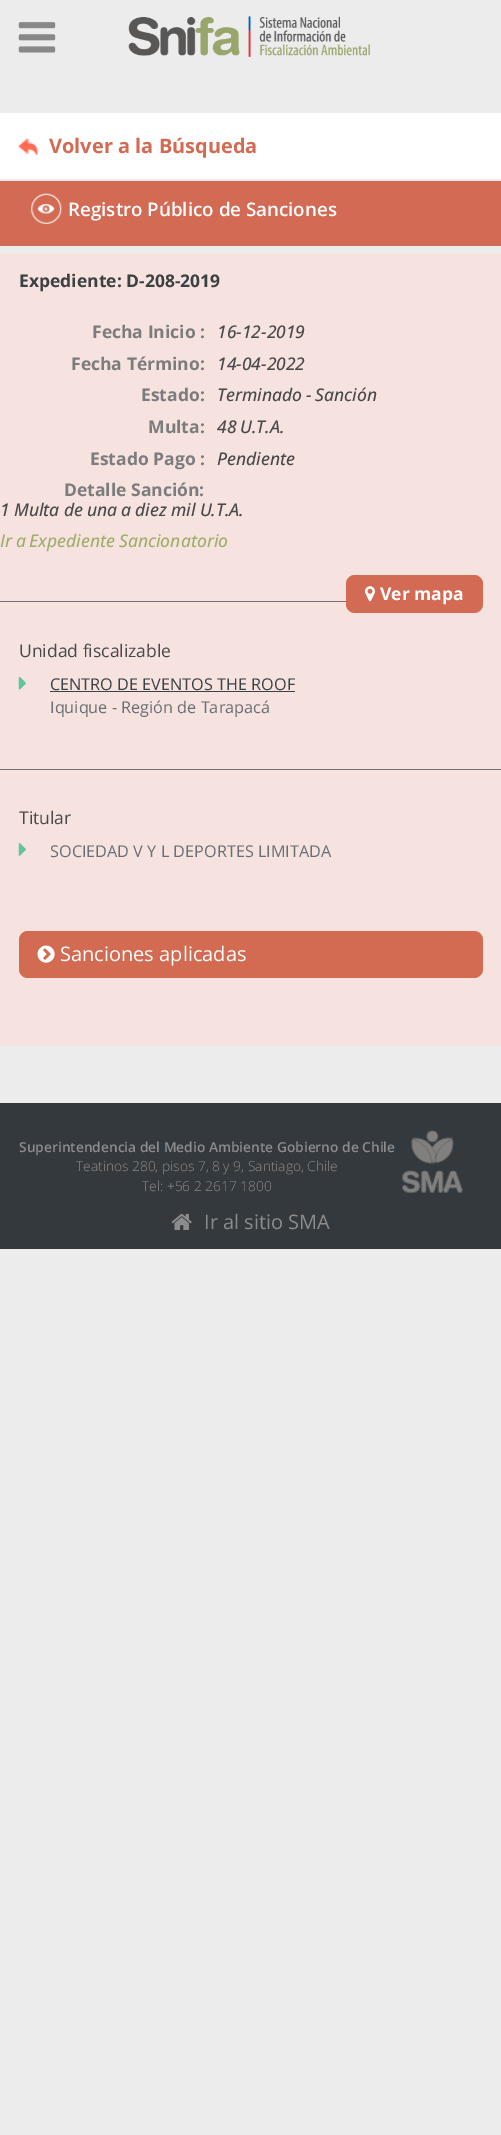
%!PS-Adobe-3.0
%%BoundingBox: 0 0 501 2135
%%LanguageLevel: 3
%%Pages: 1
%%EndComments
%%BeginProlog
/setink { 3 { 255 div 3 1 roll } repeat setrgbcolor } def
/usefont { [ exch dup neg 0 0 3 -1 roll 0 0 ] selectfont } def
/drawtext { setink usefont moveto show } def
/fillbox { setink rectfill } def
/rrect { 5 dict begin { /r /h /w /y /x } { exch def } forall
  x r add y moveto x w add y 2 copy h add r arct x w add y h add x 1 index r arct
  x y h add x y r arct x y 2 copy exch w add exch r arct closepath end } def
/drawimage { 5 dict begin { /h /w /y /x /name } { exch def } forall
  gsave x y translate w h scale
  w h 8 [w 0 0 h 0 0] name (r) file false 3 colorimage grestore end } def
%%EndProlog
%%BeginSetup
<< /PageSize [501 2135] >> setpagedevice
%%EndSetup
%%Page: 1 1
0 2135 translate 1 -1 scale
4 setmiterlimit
0 0 501 2135 237 236 237 fillbox
(assets/img1.rgb) 18 22 38 31 drawimage
(assets/img2.rgb) 128 16 242 41 drawimage
0 113 501 66 255 255 255 fillbox
(assets/img3.rgb) 18 138 20 17 drawimage
(Volver a la Búsqueda) 49 153 /OpenSans-Bold 20 211 107 83 drawtext
0 181 501 65 211 106 84 fillbox
(assets/img4.rgb) 31 193 31 31 drawimage
(Registro Público de Sanciones) 68 216 /OpenSans-SemiBold 18.75 255 255 255 drawtext
0 253 501 793 246 227 223 fillbox
(Expediente: D-208-2019) 19 287 /OpenSans-Bold 17.5 60 65 68 drawtext
(Fecha Inicio :) 92 338 /OpenSans-Bold 17.5 124 124 124 drawtext
(16-12-2019) 217 338 /OpenSans-MediumItalic 17.5 73 73 73 drawtext
(Fecha Término:) 71 370 /OpenSans-Bold 17.5 124 124 124 drawtext
(14-04-2022) 217 370 /OpenSans-MediumItalic 17.5 73 73 73 drawtext
(Estado:) 141 401 /OpenSans-Bold 17.5 124 124 124 drawtext
/OpenSans-MediumItalic 17.5 usefont
73 73 73 setink
217 401 moveto -1 0 32 (Terminado - Sanción) widthshow
(Multa:) 148 433 /OpenSans-Bold 17.5 124 124 124 drawtext
/OpenSans-MediumItalic 17.5 usefont
73 73 73 setink
217 433 moveto -1 0 32 (48 U.T.A.) widthshow
(Estado Pago :) 90 465 /OpenSans-Bold 17.5 124 124 124 drawtext
(Pendiente) 217 465 /OpenSans-MediumItalic 17.5 73 73 73 drawtext
(Detalle Sanción:) 64 496 /OpenSans-Bold 17.5 124 124 124 drawtext
/OpenSans-MediumItalic 17.5 usefont
73 73 73 setink
0 516 moveto -0.5 0 32 (1 Multa de una a diez mil U.T.A.) widthshow
160 173 108 setink
0 547 moveto -1 0 32 (Ir a Expediente Sancionatorio) widthshow
211 106 84 setink
346 575 137 38 9 rrect fill
(assets/img5.rgb) 365 586 10 16 drawimage
(Ver mapa) 380 600 /OpenSans-Bold 17.5 255 255 255 drawtext
0 601 346 1 116 116 116 fillbox
(Unidad fiscalizable) 19 657 /OpenSans-Regular 17.5 73 73 73 drawtext
(assets/img6.rgb) 18 676 8 14 drawimage
(CENTRO DE EVENTOS THE ROOF) 50 690 /OpenSans-Regular 16.25 60 65 68 drawtext
50 691 245 1 60 65 68 fillbox
(Iquique - Región de Tarapacá) 50 713 /OpenSans-Regular 16.25 106 111 115 drawtext
0 769 501 1 116 116 116 fillbox
(Titular) 19 824 /OpenSans-Regular 17.5 73 73 73 drawtext
(assets/img7.rgb) 18 843 8 13 drawimage
(SOCIEDAD V Y L DEPORTES LIMITADA) 50 857 /OpenSans-Regular 16.25 106 111 115 drawtext
211 107 83 setink
19 931 464 47 9 rrect fill
(assets/img8.rgb) 37 945 18 18 drawimage
(Sanciones aplicadas) 60 961 /OpenSans-Regular 20 255 255 255 drawtext
0 1103 501 146 51 57 61 fillbox
(Superintendencia del Medio Ambiente Gobierno de Chile) 19 1152 /OpenSans-SemiBold 13.75 140 140 140 drawtext
(Teatinos 280, pisos 7, 8 y 9, Santiago, Chile) 76 1171 /OpenSans-Light 13.75 140 140 140 drawtext
(Tel: +56 2 2617 1800) 142 1191 /OpenSans-Light 13.75 140 140 140 drawtext
(assets/img9.rgb) 402 1130 61 63 drawimage
(assets/img10.rgb) 171 1213 21 17 drawimage
(Ir al sitio SMA) 204 1229 /OpenSans-Regular 20 140 140 140 drawtext
showpage
%%EOF
